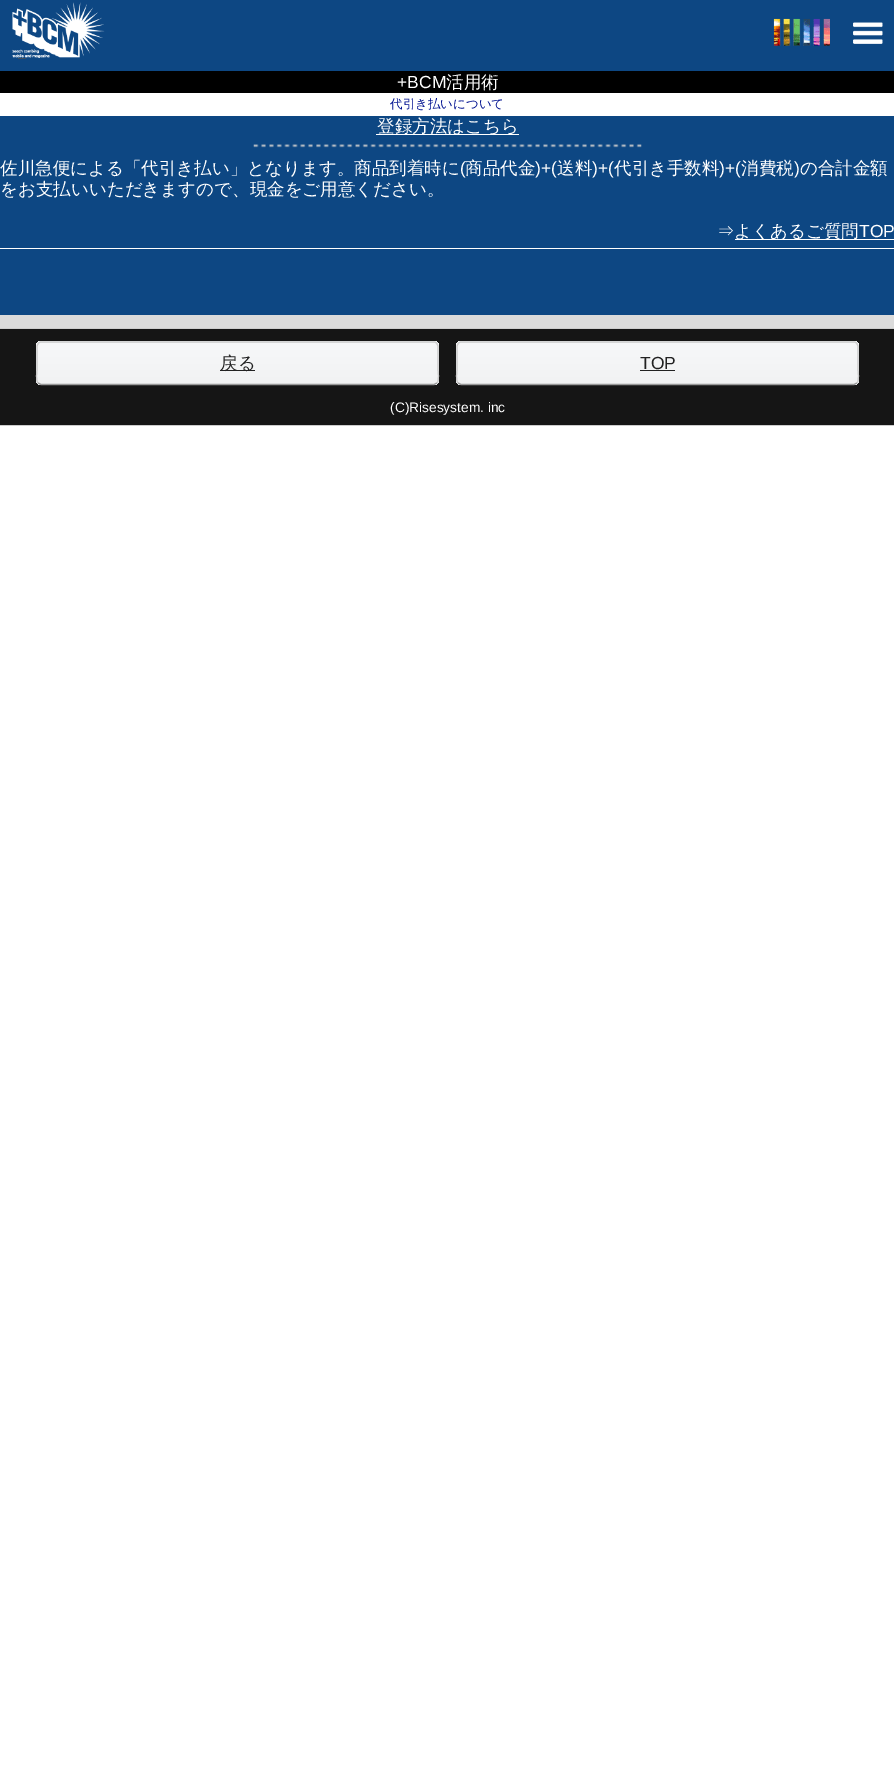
%!PS-Adobe-3.0
%%BoundingBox: 0 0 894 1767
%%LanguageLevel: 3
%%Pages: 1
%%EndComments
%%BeginProlog
/setink { 3 { 255 div 3 1 roll } repeat setrgbcolor } def
/usefont { [ exch dup neg 0 0 3 -1 roll 0 0 ] selectfont } def
/drawtext { setink usefont moveto show } def
/fillbox { setink rectfill } def
/rrect { 5 dict begin { /r /h /w /y /x } { exch def } forall
  x r add y moveto x w add y 2 copy h add r arct x w add y h add x 1 index r arct
  x y h add x y r arct x y 2 copy exch w add exch r arct closepath end } def
/drawimage { 5 dict begin { /h /w /y /x /name } { exch def } forall
  gsave x y translate w h scale
  w h 8 [w 0 0 h 0 0] name (r) file false 3 colorimage grestore end } def
%%EndProlog
%%BeginSetup
<< /PageSize [894 1767] >> setpagedevice
%%EndSetup
%%Page: 1 1
0 1767 translate 1 -1 scale
4 setmiterlimit
0 0 894 1767 255 255 255 fillbox
0 315 894 13 219 219 219 fillbox
0 0 894 315 13 71 131 fillbox
(assets/img1.rgb) 12 2 93 57 drawimage
(assets/img2.rgb) 773 18 57 28 drawimage
(assets/img3.rgb) 853 22 30 22 drawimage
0 71 894 22 0 0 0 fillbox
(+BCM) 397 88 /LiberationSans-Regular 17.5 255 255 255 drawtext
(活用術) 446 88 /WenQuanYiZenHei-Medium 17.5 255 255 255 drawtext
0 93 894 23 255 255 255 fillbox
(代引き払いについて) 390 108 /WenQuanYiZenHei-Medium 12.5 2 19 145 drawtext
376 134 143 1 255 255 255 fillbox
(登録方法はこちら) 377 132 /WenQuanYiZenHei-Medium 17.5 255 255 255 drawtext
(assets/img4.rgb) 253 144 389 4 drawimage
(佐川急便による「代引き払い」となります。商品到着時に) 0 174 /WenQuanYiZenHei-Medium 17.5 255 255 255 drawtext
(\() 460 174 /LiberationSans-Regular 17.5 255 255 255 drawtext
(商品代金) 465 174 /WenQuanYiZenHei-Medium 17.5 255 255 255 drawtext
(\)+\() 535 174 /LiberationSans-Regular 17.5 255 255 255 drawtext
(送料) 557 174 /WenQuanYiZenHei-Medium 17.5 255 255 255 drawtext
(\)+\() 592 174 /LiberationSans-Regular 17.5 255 255 255 drawtext
(代引き手数料) 614 174 /WenQuanYiZenHei-Medium 17.5 255 255 255 drawtext
(\)+\() 719 174 /LiberationSans-Regular 17.5 255 255 255 drawtext
(消費税) 741 174 /WenQuanYiZenHei-Medium 17.5 255 255 255 drawtext
(\)) 794 174 /LiberationSans-Regular 17.5 255 255 255 drawtext
(の合計金額) 800 174 /WenQuanYiZenHei-Medium 17.5 255 255 255 drawtext
(をお支払いいただきますので、現金をご用意ください。) 0 195 /WenQuanYiZenHei-Medium 17.5 255 255 255 drawtext
(⇒) 717 237 /WenQuanYiZenHei-Medium 17.5 255 255 255 drawtext
735 239 159 1 255 255 255 fillbox
(よくあるご質問) 734 237 /WenQuanYiZenHei-Medium 17.5 255 255 255 drawtext
(TOP) 859 237 /LiberationSans-Regular 17.5 255 255 255 drawtext
0 248 894 1 255 255 255 fillbox
0 329 894 96 21 21 21 fillbox
0 328 894 1 204 204 204 fillbox
0 425 894 1 204 204 204 fillbox
gsave
36 341 403 44 5 rrect clip newpath
gsave 36 341 moveto 439 341 lineto 439 343 lineto 36 343 lineto closepath clip newpath
<< /ShadingType 2 /ColorSpace /DeviceRGB /Coords [238 301 238 343] /Extend [true true] /Function << /FunctionType 2 /Domain [0 1] /C0 [0.969 0.973 0.976] /C1 [0.945 0.949 0.953] /N 1 >> >> shfill grestore
gsave 36 343 moveto 439 343 lineto 439 384 lineto 36 384 lineto closepath clip newpath
<< /ShadingType 2 /ColorSpace /DeviceRGB /Coords [238 343 238 384] /Extend [true true] /Function << /FunctionType 2 /Domain [0 1] /C0 [0.969 0.973 0.976] /C1 [0.945 0.949 0.953] /N 1 >> >> shfill grestore
gsave 36 384 moveto 439 384 lineto 439 385 lineto 36 385 lineto closepath clip newpath
<< /ShadingType 2 /ColorSpace /DeviceRGB /Coords [238 384 238 425] /Extend [true true] /Function << /FunctionType 2 /Domain [0 1] /C0 [0.969 0.973 0.976] /C1 [0.945 0.949 0.953] /N 1 >> >> shfill grestore
grestore
153 153 153 setink
1.2 setlinewidth
437 383 moveto 434 384.5 lineto 41 384.5 lineto 38 383 lineto stroke
204 204 204 setink
38 383 moveto 35.5 380.5 37 371.5 37 369 curveto 37 352 lineto 37 348.5 36 342 41 342 curveto 434 342 lineto 439 342 438 348.5 438 352 curveto 438 369 lineto 438 371.5 439.5 380.5 437 383 curveto stroke
220 370 35 1 34 34 34 fillbox
(戻る) 220 369 /WenQuanYiZenHei-Medium 17.5 34 34 34 drawtext
gsave
456 341 403 44 5 rrect clip newpath
gsave 456 341 moveto 859 341 lineto 859 343 lineto 456 343 lineto closepath clip newpath
<< /ShadingType 2 /ColorSpace /DeviceRGB /Coords [658 301 658 343] /Extend [true true] /Function << /FunctionType 2 /Domain [0 1] /C0 [0.969 0.973 0.976] /C1 [0.945 0.949 0.953] /N 1 >> >> shfill grestore
gsave 456 343 moveto 859 343 lineto 859 384 lineto 456 384 lineto closepath clip newpath
<< /ShadingType 2 /ColorSpace /DeviceRGB /Coords [658 343 658 384] /Extend [true true] /Function << /FunctionType 2 /Domain [0 1] /C0 [0.969 0.973 0.976] /C1 [0.945 0.949 0.953] /N 1 >> >> shfill grestore
gsave 456 384 moveto 859 384 lineto 859 385 lineto 456 385 lineto closepath clip newpath
<< /ShadingType 2 /ColorSpace /DeviceRGB /Coords [658 384 658 425] /Extend [true true] /Function << /FunctionType 2 /Domain [0 1] /C0 [0.969 0.973 0.976] /C1 [0.945 0.949 0.953] /N 1 >> >> shfill grestore
grestore
153 153 153 setink
857 383 moveto 854 384.5 lineto 461 384.5 lineto 458 383 lineto stroke
204 204 204 setink
458 383 moveto 455.5 380.5 457 371.5 457 369 curveto 457 352 lineto 457 348.5 456 342 461 342 curveto 854 342 lineto 859 342 858 348.5 858 352 curveto 858 369 lineto 858 371.5 859.5 380.5 857 383 curveto stroke
(TOP) 640 369 /LiberationSans-Regular 17.5 34 34 34 drawtext
640 370 35 1 34 34 34 fillbox
(\(C\)Risesystem. inc) 390 412 /LiberationSans-Regular 13.75 255 255 255 drawtext
showpage
%%EOF
